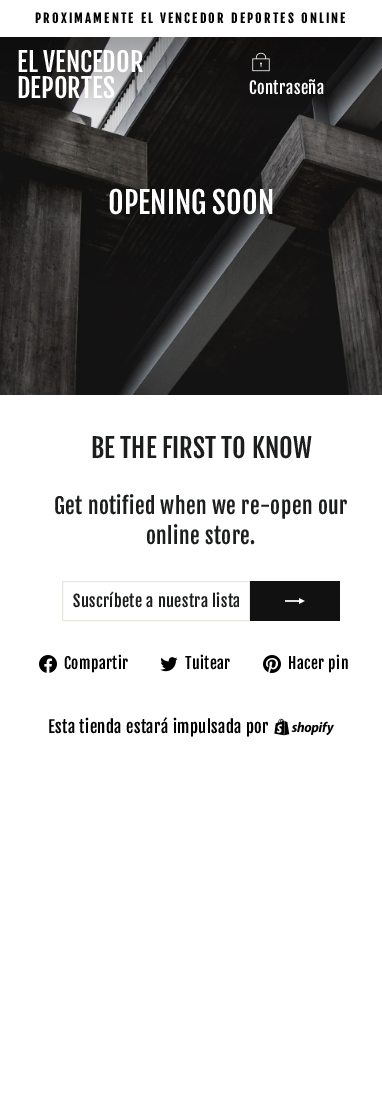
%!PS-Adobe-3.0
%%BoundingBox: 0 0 382 1105
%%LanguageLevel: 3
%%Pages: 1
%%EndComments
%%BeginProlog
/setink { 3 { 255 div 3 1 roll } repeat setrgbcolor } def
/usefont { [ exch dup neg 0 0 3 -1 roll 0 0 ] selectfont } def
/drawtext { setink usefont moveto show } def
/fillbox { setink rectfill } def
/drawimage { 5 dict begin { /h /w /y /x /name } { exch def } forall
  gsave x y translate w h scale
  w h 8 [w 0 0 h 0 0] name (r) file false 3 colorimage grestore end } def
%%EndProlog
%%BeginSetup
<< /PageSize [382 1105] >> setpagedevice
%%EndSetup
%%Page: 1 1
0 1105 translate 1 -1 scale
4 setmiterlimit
0 0 382 1105 255 255 255 fillbox
/FjallaOne-Bold 12.15 usefont
0 0 0 setink
35 23 moveto 2.45 0 (PROXIMAMENTE EL VENCEDOR DEPORTES ONLINE) ashow
(assets/img2.rgb) 0 37 382 358 drawimage
(EL VENCEDOR) 17 72 /FjallaOne-Regular 26.25 255 255 255 drawtext
(DEPORTES) 17 98 /FjallaOne-Regular 26.25 255 255 255 drawtext
(assets/img1.rgb) 252 52 18 20 drawimage
/FjallaOne-Regular 16.5 usefont
249 94 moveto 0.4 0 (Contraseña) ashow
(OPENING SOON) 108 214 /FjallaOne-Regular 30 255 255 255 drawtext
(BE THE FIRST TO KNOW) 91 458 /FjallaOne-Regular 26.25 28 29 29 drawtext
/FjallaOne-Regular 21.5 usefont
54 514 moveto 0.4 0 (Get notified when we re-open our) ashow
146 544 moveto 0.4 0 (online store.) ashow
232 232 225 setink
62.5 581.5 187 39 rectstroke
gsave
73 591 166 20 rectclip
/FjallaOne-Regular 16 usefont
28 29 29 setink
73 607 moveto 0.4 0 (Suscríbete a nuestra lista) ashow
grestore
250 581 90 40 17 17 17 fillbox
(assets/img3.rgb) 285 598 20 6 drawimage
(assets/img4.rgb) 39 655 18 18 drawimage
/FjallaOne-Regular 15.5 usefont
0 0 0 setink
64 669 moveto 0.4 0 (Compartir) ashow
(assets/img5.rgb) 160 657 18 15 drawimage
185 669 moveto 0.4 0 (Tuitear) ashow
(assets/img6.rgb) 263 655 18 18 drawimage
288 669 moveto 0.4 0 (Hacer pin) ashow
/FjallaOne-Regular 16.5 usefont
48 733 moveto 0.4 0 (Esta tienda estará impulsada por) ashow
(assets/img7.rgb) 274 718 60 18 drawimage
showpage
%%EOF
